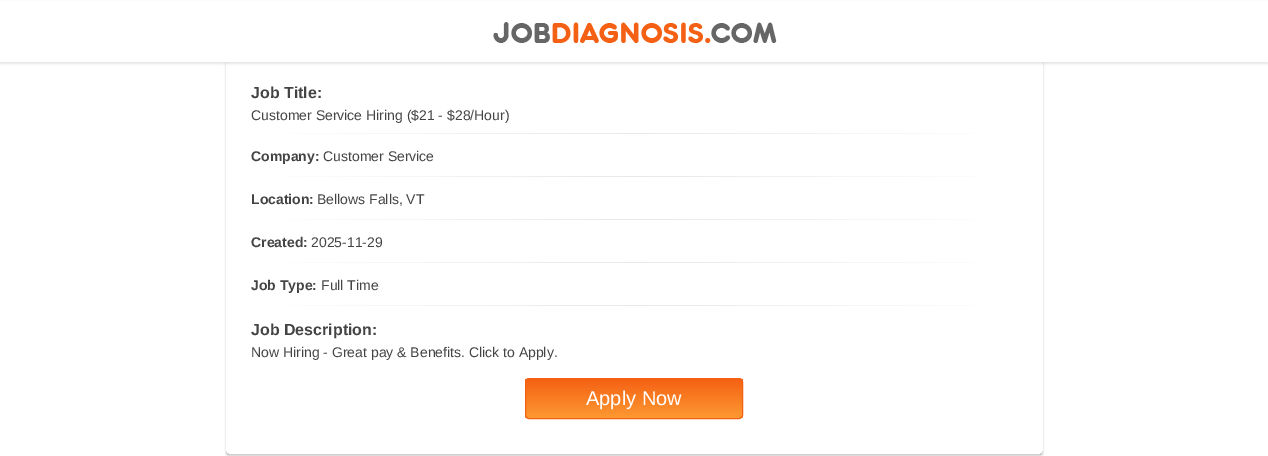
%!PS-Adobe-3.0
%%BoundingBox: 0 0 1268 456
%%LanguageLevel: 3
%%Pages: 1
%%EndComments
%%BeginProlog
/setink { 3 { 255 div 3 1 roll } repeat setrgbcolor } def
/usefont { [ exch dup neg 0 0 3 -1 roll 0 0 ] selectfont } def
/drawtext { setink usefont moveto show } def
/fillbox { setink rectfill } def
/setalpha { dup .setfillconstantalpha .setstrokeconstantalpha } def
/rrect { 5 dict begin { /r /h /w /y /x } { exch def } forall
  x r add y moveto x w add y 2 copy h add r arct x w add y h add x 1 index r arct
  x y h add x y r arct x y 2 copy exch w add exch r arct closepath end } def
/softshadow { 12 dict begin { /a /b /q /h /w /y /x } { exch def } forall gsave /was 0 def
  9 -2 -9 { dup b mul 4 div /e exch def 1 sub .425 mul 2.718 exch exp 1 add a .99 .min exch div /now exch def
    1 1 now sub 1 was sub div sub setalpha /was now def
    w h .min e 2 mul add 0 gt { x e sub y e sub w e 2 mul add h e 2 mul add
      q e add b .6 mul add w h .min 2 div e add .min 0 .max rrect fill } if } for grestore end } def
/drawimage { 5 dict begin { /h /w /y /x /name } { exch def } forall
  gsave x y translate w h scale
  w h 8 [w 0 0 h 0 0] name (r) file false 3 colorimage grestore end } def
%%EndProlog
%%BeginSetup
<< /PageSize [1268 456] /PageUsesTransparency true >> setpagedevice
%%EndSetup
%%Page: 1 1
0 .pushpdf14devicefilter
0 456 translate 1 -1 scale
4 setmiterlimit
0 0 1268 456 255 255 255 fillbox
0 0 0 setink
0 2 1268 62 0 1 0.1 softshadow
gsave
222 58 moveto 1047 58 lineto 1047 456 lineto 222 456 lineto closepath 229 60 moveto 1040 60 lineto 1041.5 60 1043 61.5 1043 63 curveto 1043 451 lineto 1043 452.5 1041.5 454 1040 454 curveto 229 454 lineto 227.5 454 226 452.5 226 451 curveto 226 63 lineto 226 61.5 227.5 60 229 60 curveto closepath eoclip newpath
226 62 817 394 3 1 0.2 softshadow
grestore
0 1 1268 61 255 255 255 fillbox
(assets/img1.rgb) 493 22 284 21 drawimage
(Job Title:) 251 98 /LiberationSans-Bold 16 68 68 68 drawtext
(Customer Service Hiring \($21 - $28/Hour\)) 251 120 /LiberationSans-Regular 14 68 68 68 drawtext
gsave 288 133 moveto 981 133 lineto 981 134 lineto 288 134 lineto closepath clip newpath
<< /ShadingType 2 /ColorSpace /DeviceRGB /Coords [251 134 1018 133] /Extend [true true] /Function << /FunctionType 3 /Domain [0 1] /Functions [<< /FunctionType 2 /Domain [0 1] /C0 [1 1 1] /C1 [0.898 0.914 0.922] /N 1 >> << /FunctionType 2 /Domain [0 1] /C0 [0.898 0.914 0.922] /C1 [1 1 1] /N 1 >>] /Bounds [0.5] /Encode [0 1 0 1] >> >> shfill grestore
(Company:) 251 161 /LiberationSans-Bold 14 68 68 68 drawtext
(Customer Service) 323 161 /LiberationSans-Regular 14 68 68 68 drawtext
gsave 288 176 moveto 981 176 lineto 981 177 lineto 288 177 lineto closepath clip newpath
<< /ShadingType 2 /ColorSpace /DeviceRGB /Coords [251 177 1018 176] /Extend [true true] /Function << /FunctionType 3 /Domain [0 1] /Functions [<< /FunctionType 2 /Domain [0 1] /C0 [1 1 1] /C1 [0.898 0.914 0.922] /N 1 >> << /FunctionType 2 /Domain [0 1] /C0 [0.898 0.914 0.922] /C1 [1 1 1] /N 1 >>] /Bounds [0.5] /Encode [0 1 0 1] >> >> shfill grestore
(Location:) 251 204 /LiberationSans-Bold 14 68 68 68 drawtext
(Bellows Falls, VT) 317 204 /LiberationSans-Regular 14 68 68 68 drawtext
gsave 288 219 moveto 981 219 lineto 981 220 lineto 288 220 lineto closepath clip newpath
<< /ShadingType 2 /ColorSpace /DeviceRGB /Coords [251 220 1018 219] /Extend [true true] /Function << /FunctionType 3 /Domain [0 1] /Functions [<< /FunctionType 2 /Domain [0 1] /C0 [1 1 1] /C1 [0.898 0.914 0.922] /N 1 >> << /FunctionType 2 /Domain [0 1] /C0 [0.898 0.914 0.922] /C1 [1 1 1] /N 1 >>] /Bounds [0.5] /Encode [0 1 0 1] >> >> shfill grestore
(Created:) 251 247 /LiberationSans-Bold 14 68 68 68 drawtext
(2025-11-29) 311 247 /LiberationSans-Regular 14 68 68 68 drawtext
gsave 288 262 moveto 981 262 lineto 981 263 lineto 288 263 lineto closepath clip newpath
<< /ShadingType 2 /ColorSpace /DeviceRGB /Coords [251 263 1018 263] /Extend [true true] /Function << /FunctionType 3 /Domain [0 1] /Functions [<< /FunctionType 2 /Domain [0 1] /C0 [1 1 1] /C1 [0.898 0.914 0.922] /N 1 >> << /FunctionType 2 /Domain [0 1] /C0 [0.898 0.914 0.922] /C1 [1 1 1] /N 1 >>] /Bounds [0.5] /Encode [0 1 0 1] >> >> shfill grestore
(Job Type:) 251 290 /LiberationSans-Bold 14 68 68 68 drawtext
(Full Time) 321 290 /LiberationSans-Regular 14 68 68 68 drawtext
gsave 288 305 moveto 981 305 lineto 981 306 lineto 288 306 lineto closepath clip newpath
<< /ShadingType 2 /ColorSpace /DeviceRGB /Coords [251 306 1018 306] /Extend [true true] /Function << /FunctionType 3 /Domain [0 1] /Functions [<< /FunctionType 2 /Domain [0 1] /C0 [1 1 1] /C1 [0.898 0.914 0.922] /N 1 >> << /FunctionType 2 /Domain [0 1] /C0 [0.898 0.914 0.922] /C1 [1 1 1] /N 1 >>] /Bounds [0.5] /Encode [0 1 0 1] >> >> shfill grestore
(Job Description:) 251 335 /LiberationSans-Bold 16 68 68 68 drawtext
(Now Hiring - Great pay & Benefits. Click to Apply.) 251 357 /LiberationSans-Regular 14 68 68 68 drawtext
gsave
525 378 218 41 4 rrect clip newpath
gsave 525 379 moveto 743 379 lineto 743 418 lineto 525 418 lineto closepath clip newpath
<< /ShadingType 2 /ColorSpace /DeviceRGB /Coords [634 379 634 418] /Extend [true true] /Function << /FunctionType 2 /Domain [0 1] /C0 [0.961 0.38 0.078] /C1 [0.992 0.6 0.196] /N 1 >> >> shfill grestore
grestore
245 97 20 setink
525.5 378.5 217 40 3.5 rrect stroke
(Apply Now) 586 405 /LiberationSans-Regular 20 255 255 255 drawtext
.poppdf14devicefilter showpage
%%EOF
